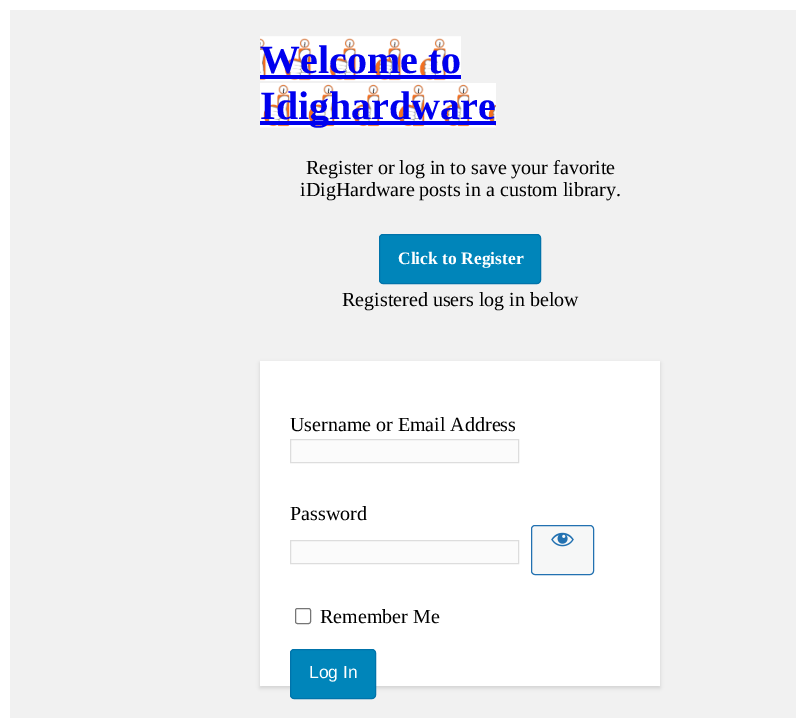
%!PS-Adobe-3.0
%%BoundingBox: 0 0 806 718
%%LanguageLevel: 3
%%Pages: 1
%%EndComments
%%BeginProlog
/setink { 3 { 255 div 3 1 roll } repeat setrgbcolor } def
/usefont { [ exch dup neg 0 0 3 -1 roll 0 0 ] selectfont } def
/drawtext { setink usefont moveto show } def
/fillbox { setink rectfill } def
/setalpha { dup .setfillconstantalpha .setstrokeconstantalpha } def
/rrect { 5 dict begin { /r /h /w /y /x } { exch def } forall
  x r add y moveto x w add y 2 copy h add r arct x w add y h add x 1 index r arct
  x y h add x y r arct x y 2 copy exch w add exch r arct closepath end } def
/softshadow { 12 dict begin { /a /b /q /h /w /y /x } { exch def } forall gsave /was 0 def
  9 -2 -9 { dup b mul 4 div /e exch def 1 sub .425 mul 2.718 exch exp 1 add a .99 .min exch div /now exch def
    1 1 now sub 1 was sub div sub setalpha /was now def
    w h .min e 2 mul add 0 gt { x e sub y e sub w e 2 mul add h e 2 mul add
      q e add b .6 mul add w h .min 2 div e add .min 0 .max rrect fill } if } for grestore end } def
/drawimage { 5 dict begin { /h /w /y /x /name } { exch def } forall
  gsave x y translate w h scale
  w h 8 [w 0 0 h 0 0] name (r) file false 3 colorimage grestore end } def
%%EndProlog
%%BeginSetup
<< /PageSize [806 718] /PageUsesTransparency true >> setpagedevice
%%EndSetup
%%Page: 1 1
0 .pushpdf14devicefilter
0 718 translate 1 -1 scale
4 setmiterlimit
0 0 806 718 255 255 255 fillbox
10 10 786 708 241 241 241 fillbox
(assets/img1.rgb) 260 36 236 92 drawimage
(Welcome to) 260 73 /LiberationSerif-Bold 40 0 0 238 drawtext
260 75 201 4 0 0 238 fillbox
260 121 236 4 0 0 238 fillbox
(Idighardware) 260 119 /LiberationSerif-Bold 40 0 0 238 drawtext
(Register or log in to save your favorite) 306 174 /LiberationSerif-Regular 20 0 0 0 drawtext
(iDigHardware posts in a custom library.) 300 196 /LiberationSerif-Regular 20 0 0 0 drawtext
0 133 186 setink
379.5 234.5 161 49 3.5 rrect gsave fill grestore
0 115 170 setink
stroke
(Click to Register) 398 264 /LiberationSerif-Bold 17.5 255 255 255 drawtext
(Registered users log in below) 342 306 /LiberationSerif-Regular 20 0 0 0 drawtext
260 363 400 325 0 2 0.13 softshadow
260 361 400 325 255 255 255 fillbox
(Username or Email Address) 290 431 /LiberationSerif-Regular 20 0 0 0 drawtext
251 251 251 setink
290.5 439.5 moveto 518.5 439.5 lineto 518.5 462.5 lineto 290.5 462.5 lineto closepath gsave fill grestore
221 221 221 setink
stroke
(Password) 290 520 /LiberationSerif-Regular 20 0 0 0 drawtext
251 251 251 setink
290.5 540.5 moveto 518.5 540.5 lineto 518.5 563.5 lineto 290.5 563.5 lineto closepath gsave fill grestore
221 221 221 setink
stroke
246 247 247 setink
531.5 525.5 62 49 3.5 rrect gsave fill grestore
34 113 177 setink
stroke
(assets/img2.rgb) 551 532 23 15 drawimage
118 118 118 setink
295.5 608.5 15 15 2 rrect stroke
(Remember Me) 320 623 /LiberationSerif-Regular 20 0 0 0 drawtext
0 133 186 setink
290.5 649.5 85 49 3.5 rrect gsave fill grestore
0 115 170 setink
stroke
(Log In) 309 678 /LiberationSans-Regular 17.5 255 255 255 drawtext
.poppdf14devicefilter showpage
%%EOF
